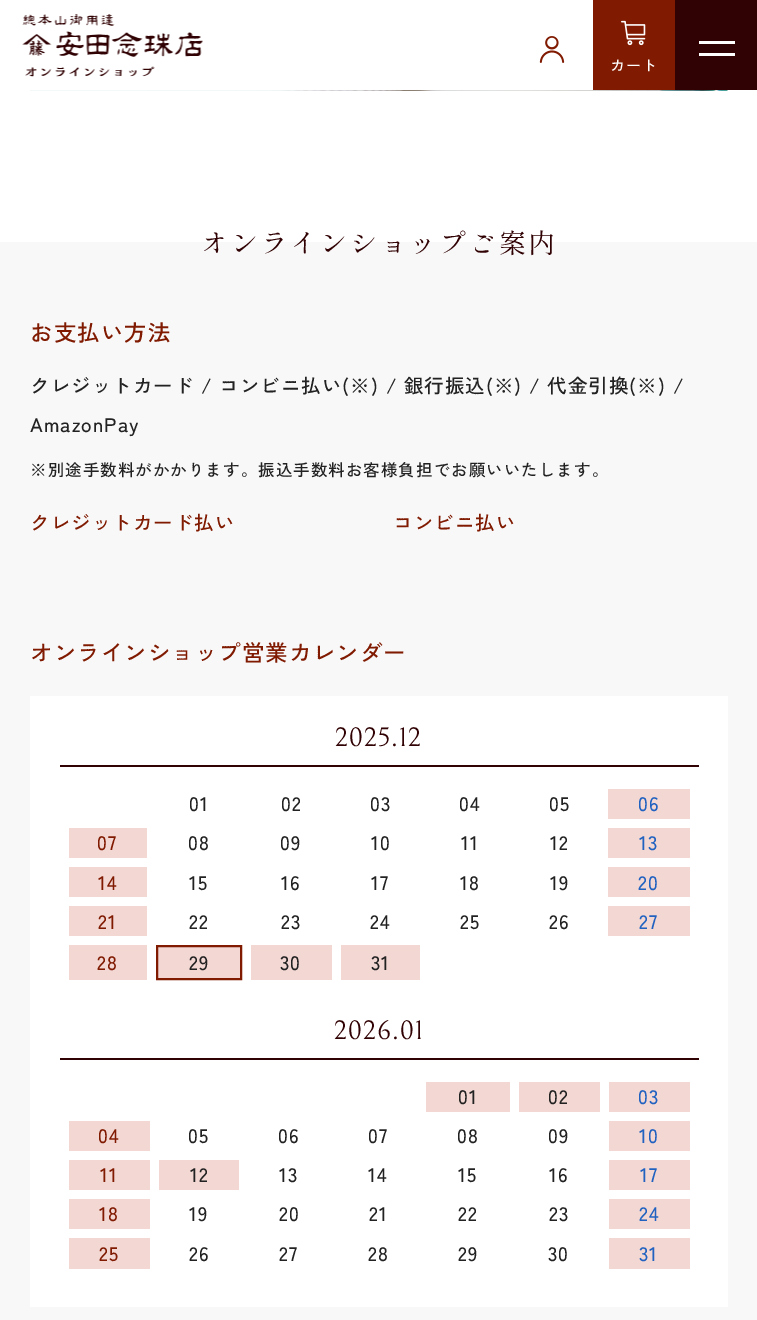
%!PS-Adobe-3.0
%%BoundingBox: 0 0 757 1320
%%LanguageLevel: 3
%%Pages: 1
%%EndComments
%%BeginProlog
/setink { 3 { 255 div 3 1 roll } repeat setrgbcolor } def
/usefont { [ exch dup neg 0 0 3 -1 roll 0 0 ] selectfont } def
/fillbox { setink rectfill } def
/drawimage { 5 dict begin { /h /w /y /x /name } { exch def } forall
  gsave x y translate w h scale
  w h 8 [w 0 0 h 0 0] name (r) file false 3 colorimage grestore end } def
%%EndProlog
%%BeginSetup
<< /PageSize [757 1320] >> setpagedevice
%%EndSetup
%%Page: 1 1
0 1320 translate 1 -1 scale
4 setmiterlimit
0 0 757 1320 255 255 255 fillbox
(assets/img1.rgb) 22 14 181 63 drawimage
(assets/img2.rgb) 539 36 26 27 drawimage
593 0 82 90 128 26 1 fillbox
(assets/img3.rgb) 621 20 25 26 drawimage
/ZenKakuGothicNew-Medium 15 usefont
255 255 255 setink
610 71 moveto 1.05 0 (カート) ashow
675 0 82 90 49 2 4 fillbox
699 41 36 3 255 255 255 fillbox
699 53 36 3 255 255 255 fillbox
(assets/img4.rgb) 30 90 698 1 drawimage
0 242 757 1078 248 248 248 fillbox
/ShipporiMincho-Regular 27 usefont
49 2 4 setink
201 253 moveto 2.75 0 (オンラインショップご案内) ashow
/ZenKakuGothicNew-Medium 22.5 usefont
128 26 1 setink
30 341 moveto 1.05 0 (お支払い方法) ashow
/ZenKakuGothicNew-Medium 19.5 usefont
34 34 34 setink
30 393 moveto 1.05 0 (クレジットカード / コンビニ払い\(※\) / 銀行振込\(※\) / 代金引換\(※\) /) ashow
30 432 moveto 1.05 0 (AmazonPay) ashow
/ZenKakuGothicNew-Medium 16.5 usefont
30 476 moveto 1.05 0 (※別途手数料がかかります。振込手数料お客様負担でお願いいたします。) ashow
/ZenKakuGothicNew-Medium 19.5 usefont
128 26 1 setink
30 530 moveto 1.05 0 (クレジットカード払い) ashow
393 530 moveto 1.05 0 (コンビニ払い) ashow
/ZenKakuGothicNew-Medium 22.5 usefont
30 661 moveto 1.05 0 (オンラインショップ営業カレンダー) ashow
30 696 698 611 255 255 255 fillbox
60 765 639 2 49 2 4 fillbox
/Bellefair-Regular 27 usefont
335 746 moveto 1.05 0 (2025.12) ashow
/ZenKakuGothicNew-Medium 19.5 usefont
34 34 34 setink
189 811 moveto 1.05 0 (01) ashow
281 811 moveto 1.05 0 (02) ashow
370 811 moveto 1.05 0 (03) ashow
459 811 moveto 1.05 0 (04) ashow
549 811 moveto 1.05 0 (05) ashow
608 789 82 30 242 215 211 fillbox
33 98 193 setink
638 811 moveto 1.05 0 (06) ashow
69 828 78 30 242 215 211 fillbox
128 26 1 setink
97 850 moveto 1.05 0 (07) ashow
34 34 34 setink
188 850 moveto 1.05 0 (08) ashow
280 850 moveto 1.05 0 (09) ashow
371 850 moveto 1.05 0 (10) ashow
461 850 moveto 1.05 0 (11) ashow
550 850 moveto 1.05 0 (12) ashow
608 828 82 30 242 215 211 fillbox
33 98 193 setink
639 850 moveto 1.05 0 (13) ashow
69 867 78 30 242 215 211 fillbox
128 26 1 setink
98 890 moveto 1.05 0 (14) ashow
34 34 34 setink
189 890 moveto 1.05 0 (15) ashow
281 890 moveto 1.05 0 (16) ashow
371 890 moveto 1.05 0 (17) ashow
460 890 moveto 1.05 0 (18) ashow
550 890 moveto 1.05 0 (19) ashow
608 867 82 30 242 215 211 fillbox
33 98 193 setink
638 890 moveto 1.05 0 (20) ashow
69 906 78 30 242 215 211 fillbox
128 26 1 setink
98 929 moveto 1.05 0 (21) ashow
34 34 34 setink
189 929 moveto 1.05 0 (22) ashow
281 929 moveto 1.05 0 (23) ashow
370 929 moveto 1.05 0 (24) ashow
460 929 moveto 1.05 0 (25) ashow
549 929 moveto 1.05 0 (26) ashow
608 906 82 30 242 215 211 fillbox
33 98 193 setink
639 929 moveto 1.05 0 (27) ashow
69 945 78 35 242 215 211 fillbox
128 26 1 setink
97 970 moveto 1.05 0 (28) ashow
242 215 211 setink
157 946 moveto 241 946 lineto 241 979 lineto 157 979 lineto closepath gsave fill grestore
128 26 1 setink
2 setlinewidth
stroke
34 34 34 setink
189 970 moveto 1.05 0 (29) ashow
251 945 81 35 242 215 211 fillbox
34 34 34 setink
280 970 moveto 1.05 0 (30) ashow
341 945 79 35 242 215 211 fillbox
34 34 34 setink
371 970 moveto 1.05 0 (31) ashow
60 1058 639 2 49 2 4 fillbox
/Bellefair-Regular 27 usefont
334 1039 moveto 1.05 0 (2026.01) ashow
426 1082 84 30 242 215 211 fillbox
/ZenKakuGothicNew-Medium 19.5 usefont
34 34 34 setink
458 1104 moveto 1.05 0 (01) ashow
519 1082 81 30 242 215 211 fillbox
34 34 34 setink
548 1104 moveto 1.05 0 (02) ashow
609 1082 81 30 242 215 211 fillbox
33 98 193 setink
638 1104 moveto 1.05 0 (03) ashow
69 1121 81 30 242 215 211 fillbox
128 26 1 setink
98 1143 moveto 1.05 0 (04) ashow
34 34 34 setink
188 1143 moveto 1.05 0 (05) ashow
278 1143 moveto 1.05 0 (06) ashow
368 1143 moveto 1.05 0 (07) ashow
457 1143 moveto 1.05 0 (08) ashow
548 1143 moveto 1.05 0 (09) ashow
609 1121 81 30 242 215 211 fillbox
33 98 193 setink
639 1143 moveto 1.05 0 (10) ashow
69 1160 81 30 242 215 211 fillbox
128 26 1 setink
100 1182 moveto 1.05 0 (11) ashow
159 1160 80 30 242 215 211 fillbox
34 34 34 setink
190 1182 moveto 1.05 0 (12) ashow
279 1182 moveto 1.05 0 (13) ashow
368 1182 moveto 1.05 0 (14) ashow
458 1182 moveto 1.05 0 (15) ashow
549 1182 moveto 1.05 0 (16) ashow
609 1160 81 30 242 215 211 fillbox
33 98 193 setink
640 1182 moveto 1.05 0 (17) ashow
69 1199 81 30 242 215 211 fillbox
128 26 1 setink
99 1221 moveto 1.05 0 (18) ashow
34 34 34 setink
189 1221 moveto 1.05 0 (19) ashow
279 1221 moveto 1.05 0 (20) ashow
369 1221 moveto 1.05 0 (21) ashow
458 1221 moveto 1.05 0 (22) ashow
549 1221 moveto 1.05 0 (23) ashow
609 1199 81 30 242 215 211 fillbox
33 98 193 setink
639 1221 moveto 1.05 0 (24) ashow
69 1238 81 31 242 215 211 fillbox
128 26 1 setink
99 1261 moveto 1.05 0 (25) ashow
34 34 34 setink
189 1261 moveto 1.05 0 (26) ashow
279 1261 moveto 1.05 0 (27) ashow
368 1261 moveto 1.05 0 (28) ashow
458 1261 moveto 1.05 0 (29) ashow
548 1261 moveto 1.05 0 (30) ashow
609 1238 81 31 242 215 211 fillbox
33 98 193 setink
639 1261 moveto 1.05 0 (31) ashow
showpage
%%EOF
